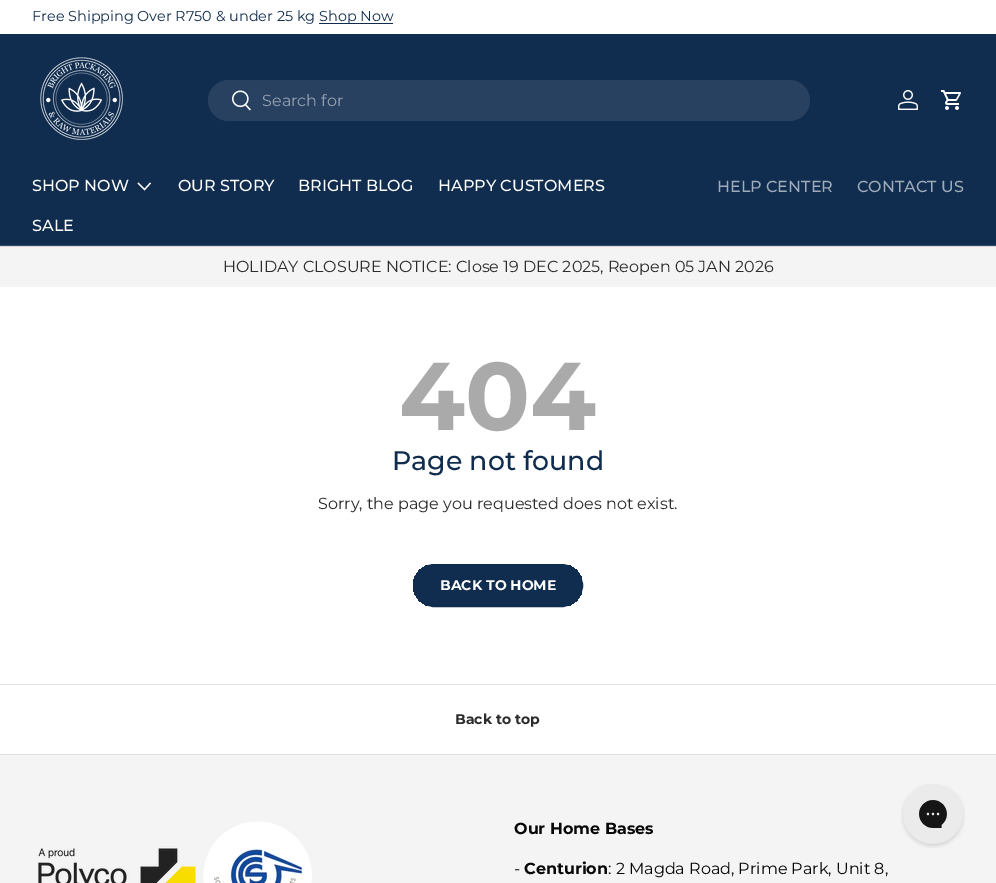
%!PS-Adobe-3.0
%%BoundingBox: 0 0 996 883
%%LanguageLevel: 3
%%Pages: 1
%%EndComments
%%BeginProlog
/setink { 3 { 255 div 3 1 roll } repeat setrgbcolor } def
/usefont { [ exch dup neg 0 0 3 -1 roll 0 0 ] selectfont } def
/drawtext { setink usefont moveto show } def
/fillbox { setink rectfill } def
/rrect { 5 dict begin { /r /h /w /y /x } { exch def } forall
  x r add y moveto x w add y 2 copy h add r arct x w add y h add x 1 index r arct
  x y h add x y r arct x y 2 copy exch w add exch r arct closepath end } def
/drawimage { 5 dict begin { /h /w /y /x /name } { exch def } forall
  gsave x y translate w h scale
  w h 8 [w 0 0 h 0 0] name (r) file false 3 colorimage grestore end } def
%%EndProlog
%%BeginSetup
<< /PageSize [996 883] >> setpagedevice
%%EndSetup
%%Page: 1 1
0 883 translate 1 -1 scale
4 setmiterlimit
0 0 996 883 255 255 255 fillbox
(Free Shipping Over R750 & under 25 kg) 32 21 /Montserrat-Regular 14.4 16 44 78 drawtext
319 23 74 1 16 44 78 fillbox
(Shop Now) 319 21 /Montserrat-Regular 14.4 16 44 78 drawtext
0 34 996 211 16 44 78 fillbox
0 245 996 1 52 76 105 fillbox
(assets/img1.rgb) 40 57 83 83 drawimage
40 65 96 setink
208 80 602 41 20.5 rrect fill
(assets/img2.rgb) 232 90 19 21 drawimage
(Search for) 262 106 /Montserrat-Regular 16 148 160 176 drawtext
(assets/img3.rgb) 898 90 20 20 drawimage
(assets/img4.rgb) 941 90 20 20 drawimage
(SHOP NOW) 32 191 /Montserrat-Medium 16 255 255 255 drawtext
1.2 setlinewidth
150.5 183 moveto 144.5 189.5 lineto 138 183 lineto stroke
(OUR STORY) 178 191 /Montserrat-Medium 16 255 255 255 drawtext
(BRIGHT BLOG) 298 191 /Montserrat-Medium 16 255 255 255 drawtext
(HAPPY CUSTOMERS) 438 191 /Montserrat-Medium 16 255 255 255 drawtext
(SALE) 32 231 /Montserrat-Medium 16 255 255 255 drawtext
(HELP CENTER) 717 192 /Montserrat-Medium 16 159 171 184 drawtext
(CONTACT US) 857 192 /Montserrat-Medium 16 159 171 184 drawtext
0 247 996 40 244 244 244 fillbox
0 246 996 1 214 214 214 fillbox
(HOLIDAY CLOSURE NOTICE: Close 19 DEC 2025, Reopen 05 JAN 2026) 223 272 /Montserrat-Regular 16 42 43 42 drawtext
(404) 399 430 /Montserrat-Bold 96 170 170 170 drawtext
(Page not found) 392 470 /Montserrat-Medium 26.75 16 44 78 drawtext
(Sorry, the page you requested does not exist.) 318 509 /Montserrat-Regular 16 42 43 42 drawtext
gsave
413 564 170 43 21.5 rrect clip newpath
gsave 413 565 moveto 582 565 lineto 582 606 lineto 413 606 lineto closepath clip newpath
<< /ShadingType 2 /ColorSpace /DeviceRGB /Coords [88 525 572 646] /Extend [true true] /Function << /FunctionType 3 /Domain [0 1] /Functions [<< /FunctionType 2 /Domain [0 1] /C0 [0.224 0.325 0.451] /C1 [0.224 0.325 0.451] /N 1 >> << /FunctionType 2 /Domain [0 1] /C0 [0.063 0.173 0.306] /C1 [0.063 0.173 0.306] /N 1 >>] /Bounds [0.6] /Encode [0 1 0 1] >> >> shfill grestore
grestore
16 44 78 setink
1 setlinewidth
413.5 564.5 169 42 21 rrect stroke
(BACK TO HOME) 440 590 /Montserrat-Bold 14 255 255 255 drawtext
0 684 996 1 223 223 223 fillbox
0 754 996 1 223 223 223 fillbox
(Back to top) 455 724 /Montserrat-Bold 14 42 43 42 drawtext
0 755 996 128 244 244 244 fillbox
(assets/img5.rgb) 38 821 274 62 drawimage
(Our Home Bases) 514 834 /Montserrat-Bold 16 7 7 7 drawtext
(-) 514 874 /Montserrat-Regular 16 7 7 7 drawtext
(Centurion) 524 874 /Montserrat-Bold 16 7 7 7 drawtext
(: 2 Magda Road, Prime Park, Unit 8,) 608 874 /Montserrat-Regular 16 7 7 7 drawtext
(assets/img6.rgb) 901 784 64 64 drawimage
showpage
%%EOF
